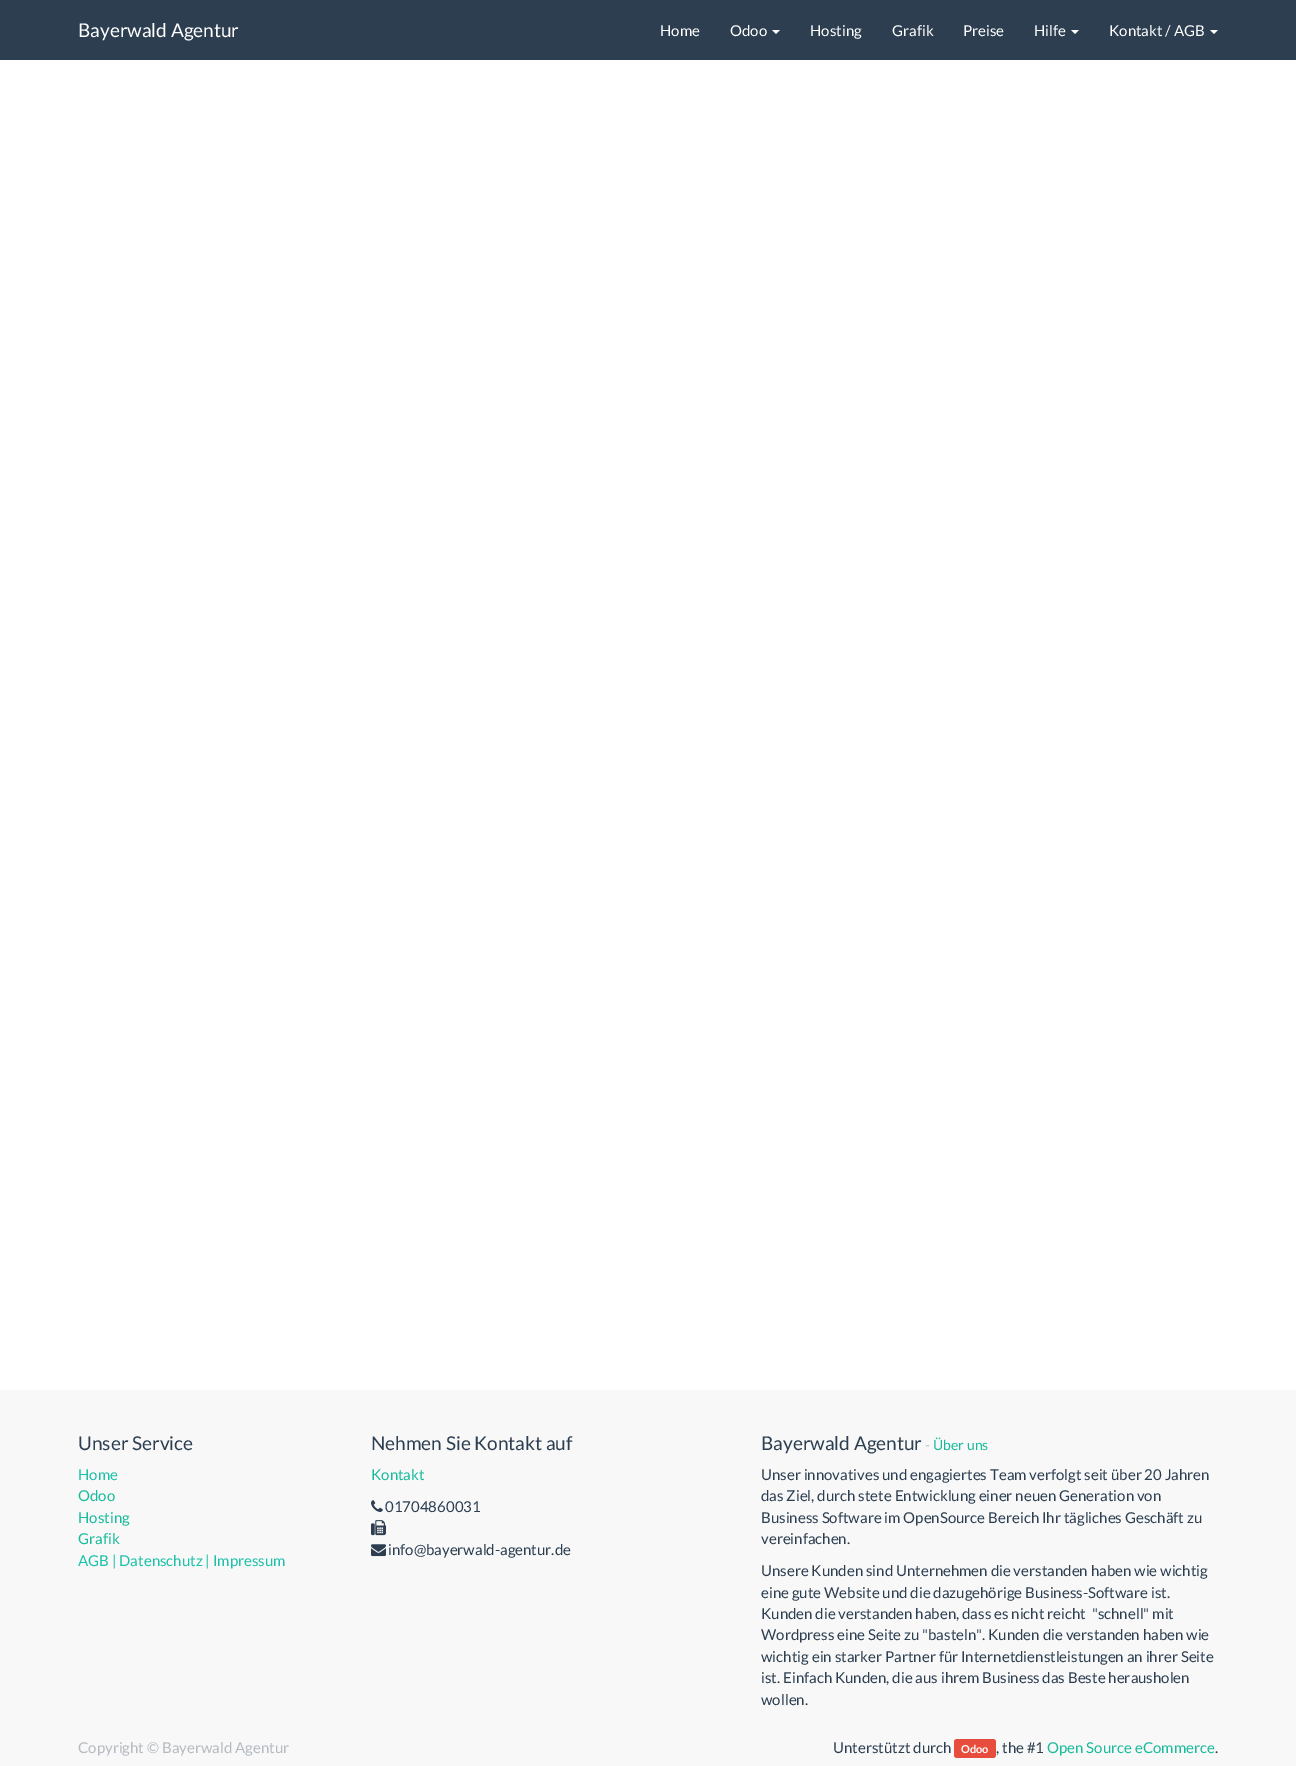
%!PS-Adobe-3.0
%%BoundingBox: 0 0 1296 1766
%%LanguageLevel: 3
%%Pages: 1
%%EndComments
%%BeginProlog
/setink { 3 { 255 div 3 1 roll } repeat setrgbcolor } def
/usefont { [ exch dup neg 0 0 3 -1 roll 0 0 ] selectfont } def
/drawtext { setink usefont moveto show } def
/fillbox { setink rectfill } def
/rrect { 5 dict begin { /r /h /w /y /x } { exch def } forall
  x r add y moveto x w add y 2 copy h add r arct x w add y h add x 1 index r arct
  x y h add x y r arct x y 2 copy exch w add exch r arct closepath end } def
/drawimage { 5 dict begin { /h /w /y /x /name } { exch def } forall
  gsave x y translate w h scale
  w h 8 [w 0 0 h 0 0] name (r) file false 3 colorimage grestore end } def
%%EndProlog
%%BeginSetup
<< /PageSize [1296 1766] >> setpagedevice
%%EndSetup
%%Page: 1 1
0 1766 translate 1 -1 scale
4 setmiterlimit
0 0 1296 1766 255 255 255 fillbox
0 0 1296 60 44 62 80 fillbox
(Bayerwald Agentur) 78 37 /Lato-Regular 19 255 255 255 drawtext
(Home) 660 36 /Lato-Regular 15 255 255 255 drawtext
(Odoo) 730 36 /Lato-Regular 15 255 255 255 drawtext
772 30 moveto 780 30 lineto 776 34 lineto closepath fill
(Hosting) 810 36 /Lato-Regular 15 255 255 255 drawtext
(Grafik) 892 36 /Lato-Regular 15 255 255 255 drawtext
(Preise) 963 36 /Lato-Regular 15 255 255 255 drawtext
(Hilfe) 1034 36 /Lato-Regular 15 255 255 255 drawtext
1071 30 moveto 1079 30 lineto 1075 34 lineto closepath fill
(Kontakt / AGB) 1109 36 /Lato-Regular 15 255 255 255 drawtext
1210 30 moveto 1218 30 lineto 1214 34 lineto closepath fill
0 1390 1296 376 248 248 248 fillbox
(Unser Service) 78 1450 /Lato-Regular 19 44 62 80 drawtext
(Home) 78 1480 /Lato-Regular 15 28 193 169 drawtext
(Odoo) 78 1501 /Lato-Regular 15 24 188 156 drawtext
(Hosting) 78 1523 /Lato-Regular 15 24 188 156 drawtext
(Grafik) 78 1544 /Lato-Regular 15 24 188 156 drawtext
(AGB | Datenschutz | Impressum) 78 1566 /Lato-Regular 15 28 193 169 drawtext
(Nehmen Sie Kontakt auf) 371 1450 /Lato-Regular 19 44 62 80 drawtext
(Kontakt) 371 1480 /Lato-Regular 15 24 188 156 drawtext
(assets/img1.rgb) 371 1500 12 12 drawimage
(01704860031) 385 1512 /Lato-Regular 15 44 62 80 drawtext
(assets/img2.rgb) 371 1520 15 16 drawimage
(assets/img3.rgb) 371 1544 15 13 drawimage
(info@bayerwald-agentur.de) 388 1555 /Lato-Regular 15 44 62 80 drawtext
(Bayerwald Agentur) 761 1450 /Lato-Regular 19 44 62 80 drawtext
(-) 925 1450 /Lato-Regular 14 180 188 194 drawtext
(Über uns) 933 1450 /Lato-Regular 14 24 188 156 drawtext
(Unser innovatives und engagiertes Team verfolgt seit über 20 Jahren) 761 1480 /Lato-Regular 15 44 62 80 drawtext
(das Ziel, durch stete Entwicklung einer neuen Generation von) 761 1501 /Lato-Regular 15 44 62 80 drawtext
(Business Software im OpenSource Bereich Ihr tägliches Geschäft zu) 761 1523 /Lato-Regular 15 44 62 80 drawtext
(vereinfachen.) 761 1544 /Lato-Regular 15 44 62 80 drawtext
(Unsere Kunden sind Unternehmen die verstanden haben wie wichtig) 761 1576 /Lato-Regular 15 44 62 80 drawtext
(eine gute Website und die dazugehörige Business-Software ist.) 761 1598 /Lato-Regular 15 44 62 80 drawtext
(Kunden die verstanden haben, dass es nicht reicht  "schnell" mit) 761 1619 /Lato-Regular 15 44 62 80 drawtext
(Wordpress eine Seite zu "basteln". Kunden die verstanden haben wie) 761 1640 /Lato-Regular 15 44 62 80 drawtext
(wichtig ein starker Partner für Internetdienstleistungen an ihrer Seite) 761 1662 /Lato-Regular 15 44 62 80 drawtext
(ist. Einfach Kunden, die aus ihrem Business das Beste herausholen) 761 1683 /Lato-Regular 15 44 62 80 drawtext
(wollen.) 761 1705 /Lato-Regular 15 44 62 80 drawtext
(Copyright © Bayerwald Agentur) 78 1753 /Lato-Regular 15 180 188 194 drawtext
(Unterstützt durch) 833 1753 /Lato-Regular 15 44 62 80 drawtext
231 76 60 setink
954 1739 42 19 3 rrect fill
(Odoo) 961 1753 /Lato-Bold 11 255 255 255 drawtext
(, the #1) 996 1753 /Lato-Regular 15 44 62 80 drawtext
(Open Source eCommerce) 1047 1753 /Lato-Regular 15 24 188 156 drawtext
(.) 1215 1753 /Lato-Regular 15 44 62 80 drawtext
showpage
%%EOF
